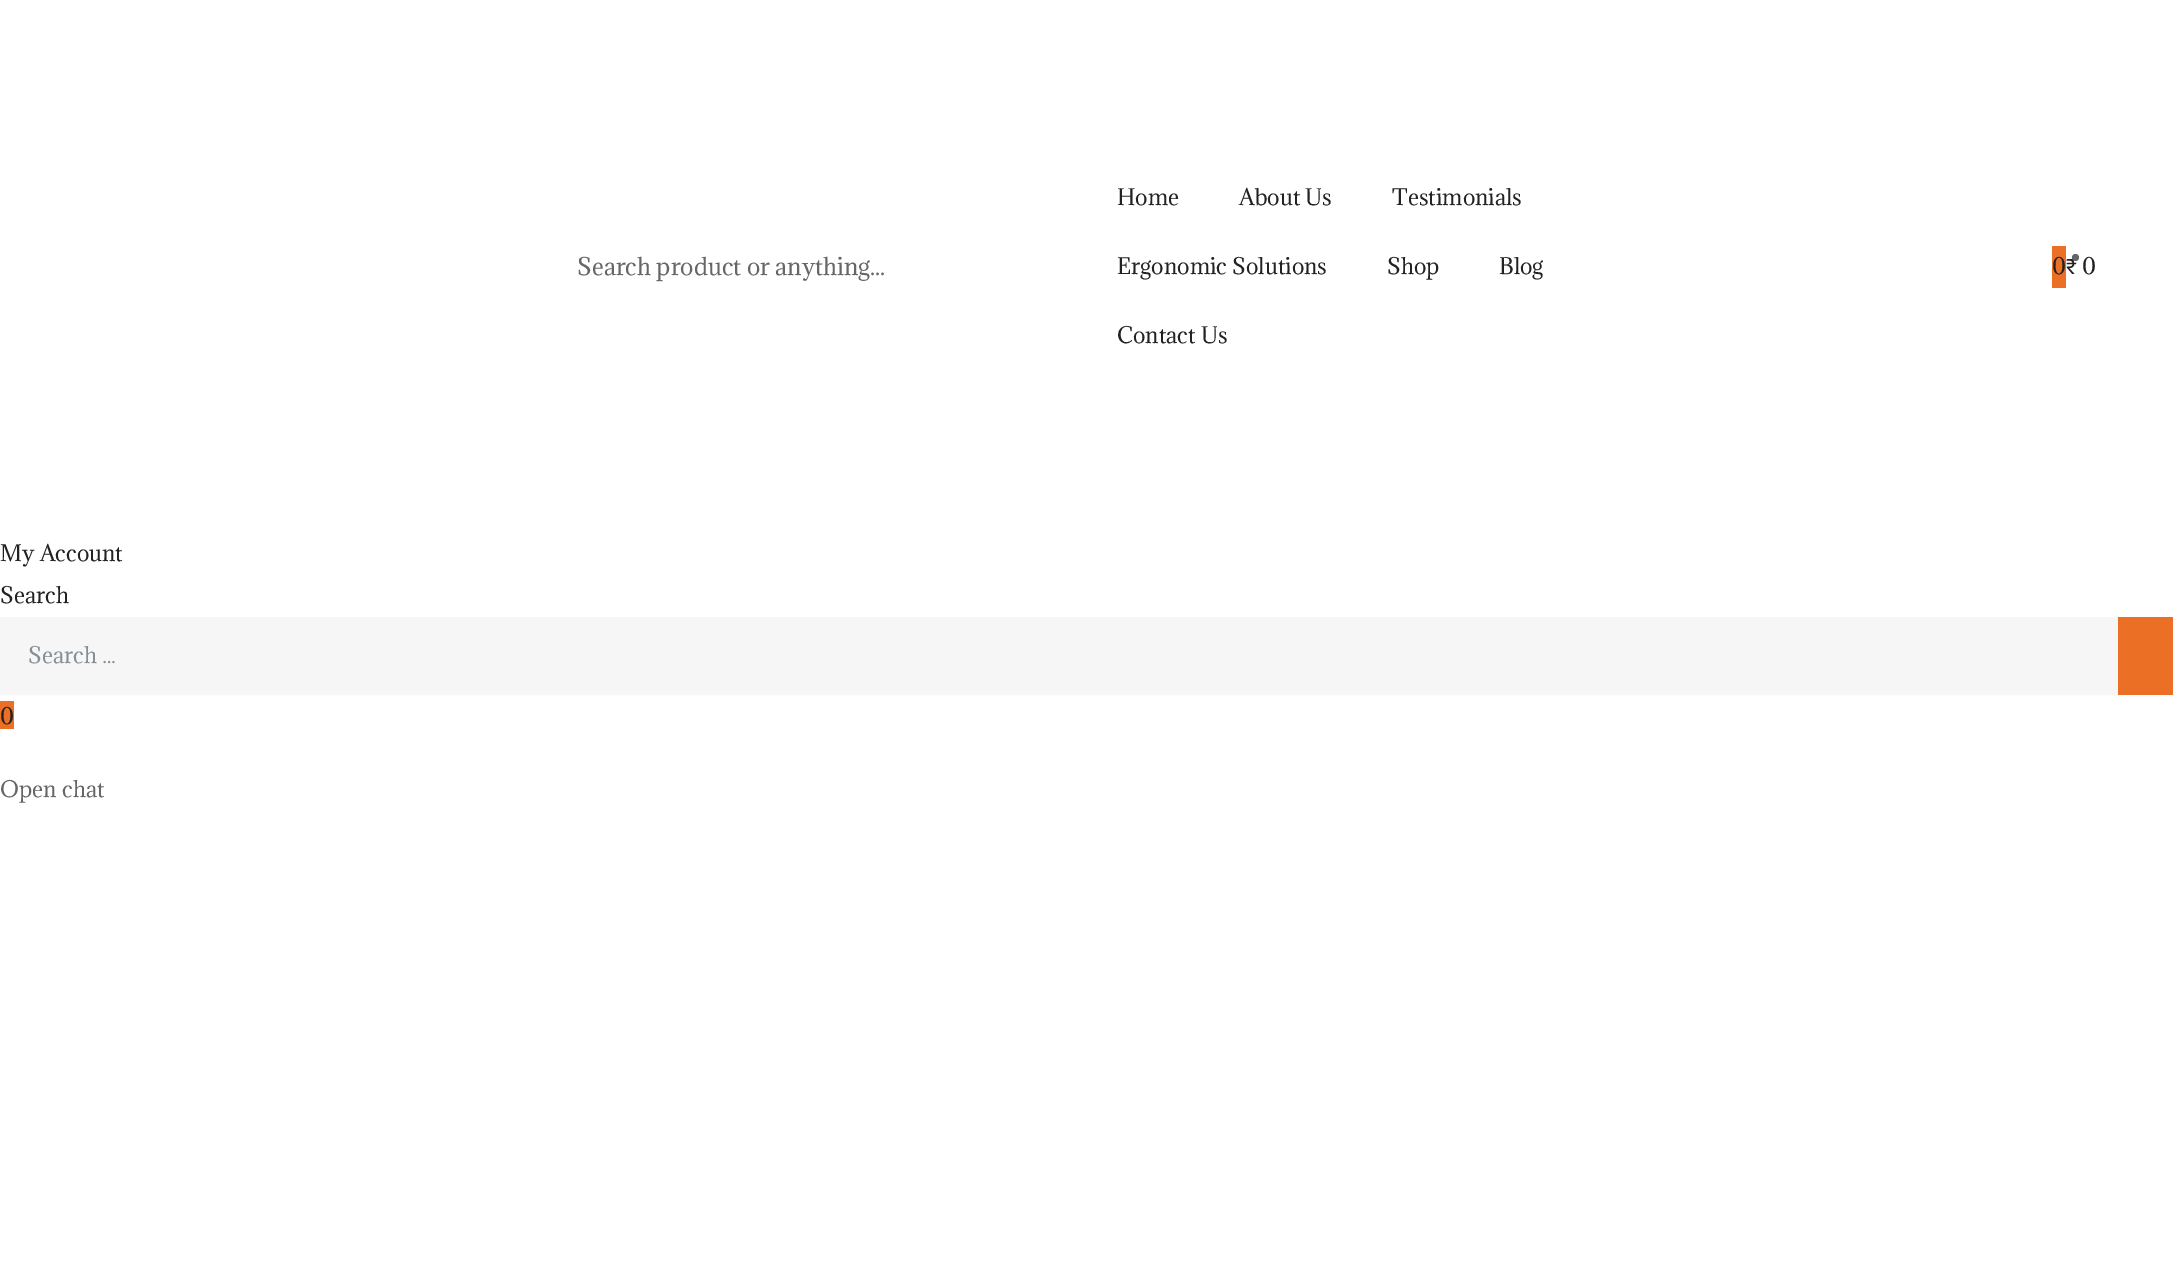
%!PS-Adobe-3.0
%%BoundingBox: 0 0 2173 1282
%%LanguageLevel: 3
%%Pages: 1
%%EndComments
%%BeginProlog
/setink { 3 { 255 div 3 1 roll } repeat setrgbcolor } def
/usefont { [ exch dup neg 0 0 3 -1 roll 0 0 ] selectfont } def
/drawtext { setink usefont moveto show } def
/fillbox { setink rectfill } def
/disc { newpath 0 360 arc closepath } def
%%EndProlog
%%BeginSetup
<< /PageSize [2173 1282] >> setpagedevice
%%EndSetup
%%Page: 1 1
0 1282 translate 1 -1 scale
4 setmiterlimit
0 0 2173 1282 255 255 255 fillbox
(Search product or anything...) 577 275 /Adamina-Regular 22.5 102 102 102 drawtext
(Home) 1117 205 /Adamina-Regular 21 34 34 34 drawtext
(About Us) 1239 205 /Adamina-Regular 21 34 34 34 drawtext
(Testimonials) 1392 205 /Adamina-Regular 21 34 34 34 drawtext
(Ergonomic Solutions) 1117 274 /Adamina-Regular 21 34 34 34 drawtext
(Shop) 1387 274 /Adamina-Regular 21 34 34 34 drawtext
(Blog) 1499 274 /Adamina-Regular 21 34 34 34 drawtext
(Contact Us) 1117 343 /Adamina-Regular 21 34 34 34 drawtext
(₹) 2066 274 /Roboto-Regular 21 34 34 34 drawtext
102 102 102 setink
2075.5 257.5 3.5 disc fill
2052 246 14 42 235 112 37 fillbox
(0) 2052 274 /Adamina-Regular 21 34 34 34 drawtext
(0) 2082 274 /Adamina-Regular 21 34 34 34 drawtext
(My Account) 0 561 /Adamina-Regular 21 34 34 34 drawtext
(Search) 0 603 /Adamina-Regular 21 34 34 34 drawtext
246 246 246 setink
1 618 moveto 2117 618 lineto 2117 694 lineto 1 694 lineto closepath gsave fill grestore
2 setlinewidth
stroke
(Search) 28 663 /Adamina-Regular 21 134 142 150 drawtext
(…) 102 663 /Roboto-Regular 21 134 142 150 drawtext
2118 617 55 78 235 112 37 fillbox
0 701 14 28 235 112 37 fillbox
(0) 0 724 /Adamina-Regular 21 34 34 34 drawtext
(Open chat) 0 797 /Adamina-Regular 21 102 102 102 drawtext
showpage
%%EOF
